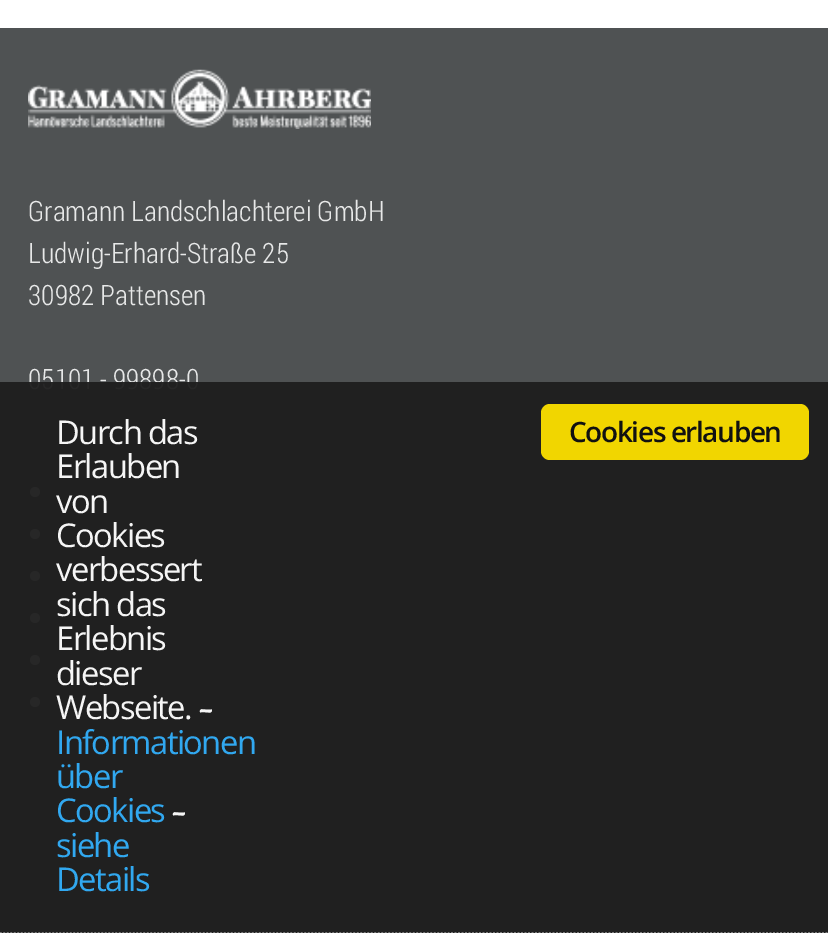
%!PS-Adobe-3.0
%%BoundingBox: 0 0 828 933
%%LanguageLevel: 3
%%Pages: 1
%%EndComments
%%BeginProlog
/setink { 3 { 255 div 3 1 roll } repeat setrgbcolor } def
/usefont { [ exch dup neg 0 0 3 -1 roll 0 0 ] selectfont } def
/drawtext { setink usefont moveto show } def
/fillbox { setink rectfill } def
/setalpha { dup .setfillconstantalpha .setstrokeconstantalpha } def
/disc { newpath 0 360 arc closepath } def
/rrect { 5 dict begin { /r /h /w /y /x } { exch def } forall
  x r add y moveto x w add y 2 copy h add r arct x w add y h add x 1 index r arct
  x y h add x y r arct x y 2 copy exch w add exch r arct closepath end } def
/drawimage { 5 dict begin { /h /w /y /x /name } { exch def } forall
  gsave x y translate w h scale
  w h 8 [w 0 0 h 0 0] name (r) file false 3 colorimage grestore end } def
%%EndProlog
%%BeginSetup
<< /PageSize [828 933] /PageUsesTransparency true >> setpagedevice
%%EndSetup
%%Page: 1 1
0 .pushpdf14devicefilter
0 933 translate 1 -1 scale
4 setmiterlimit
0 0 828 933 255 255 255 fillbox
0 28 828 905 79 82 83 fillbox
(assets/img1.rgb) 28 69 343 60 drawimage
(Gramann Landschlachterei GmbH) 28 221 /RobotoCondensed-Light 28 231 232 232 drawtext
(Ludwig-Erhard-Straße 25) 28 263 /RobotoCondensed-Light 28 231 232 232 drawtext
(30982 Pattensen) 28 305 /RobotoCondensed-Light 28 231 232 232 drawtext
(05101 - 99898-0) 28 389 /RobotoCondensed-Light 28 231 232 232 drawtext
35 492 5 disc fill
35 534 5 disc fill
35 576 5 disc fill
35 618 5 disc fill
35 660 5 disc fill
35 702 5 disc fill
0.95 setalpha
0 382 828 551 29 29 29 fillbox
1 setalpha
204 204 204 setink
1.8 setlinewidth
[1.75 1.75] 0 setdash
0 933.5 moveto 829.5 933.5 lineto stroke
/OpenSans-Regular 32.75 usefont
245 245 245 setink
56 444 moveto -1.6 0 (Durch das) ashow
56 478 moveto -1.6 0 (Erlauben) ashow
56 513 moveto -1.6 0 (von) ashow
56 547 moveto -1.6 0 (Cookies) ashow
56 581 moveto -1.6 0 (verbessert) ashow
56 616 moveto -1.6 0 (sich das) ashow
56 650 moveto -1.6 0 (Erlebnis) ashow
56 685 moveto -1.6 0 (dieser) ashow
56 719 moveto -1.6 0 (Webseite.) ashow
/Salsa-Regular 32.75 usefont
198 719 moveto -1.6 0 (-) ashow
/OpenSans-Regular 32.75 usefont
49 168 240 setink
56 754 moveto -1.6 0 (Informationen) ashow
56 788 moveto -1.6 0 (über) ashow
56 822 moveto -1.6 0 (Cookies) ashow
/Salsa-Regular 32.75 usefont
245 245 245 setink
171 822 moveto -1.6 0 (-) ashow
/OpenSans-Regular 32.75 usefont
49 168 240 setink
56 857 moveto -1.6 0 (siehe) ashow
56 891 moveto -1.6 0 (Details) ashow
241 214 0 setink
541 404 268 56 9 rrect fill
/OpenSans-SemiBold 28 usefont
17 17 17 setink
569 442 moveto -1.4 0 (Cookies erlauben) ashow
.poppdf14devicefilter showpage
%%EOF
